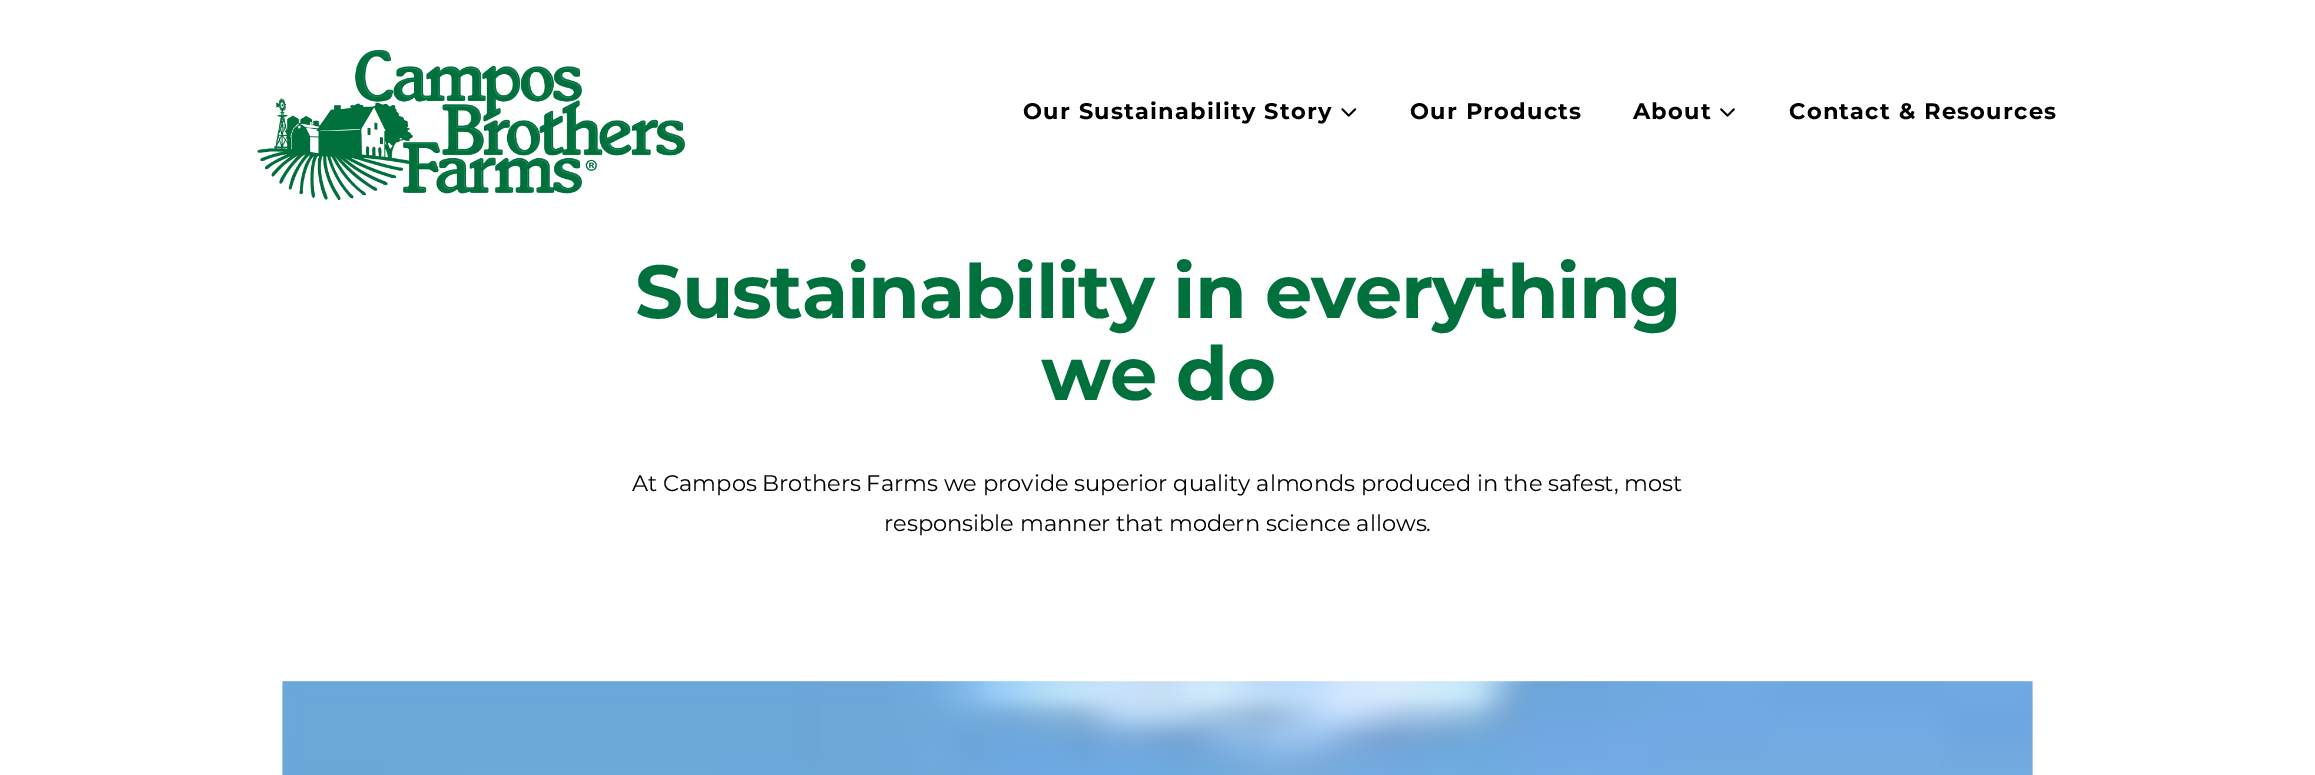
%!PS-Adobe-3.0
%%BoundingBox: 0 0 2315 775
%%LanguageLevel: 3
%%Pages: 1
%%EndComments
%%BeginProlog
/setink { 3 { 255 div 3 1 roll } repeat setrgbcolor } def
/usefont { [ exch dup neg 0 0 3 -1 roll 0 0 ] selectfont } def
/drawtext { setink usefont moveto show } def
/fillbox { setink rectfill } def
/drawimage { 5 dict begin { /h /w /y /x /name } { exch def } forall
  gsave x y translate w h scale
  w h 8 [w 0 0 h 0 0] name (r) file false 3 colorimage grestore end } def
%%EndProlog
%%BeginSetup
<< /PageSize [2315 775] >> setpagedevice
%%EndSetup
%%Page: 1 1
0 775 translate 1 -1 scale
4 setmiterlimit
0 0 2315 775 255 255 255 fillbox
(assets/img1.rgb) 257 50 428 150 drawimage
/Montserrat-Bold 22.5 usefont
0 0 0 setink
1023 119 moveto 1.25 0 (Our Sustainability Story) ashow
(assets/img2.rgb) 1341 108 16 9 drawimage
1410 119 moveto 1.25 0 (Our Products) ashow
1633 119 moveto 1.25 0 (About) ashow
(assets/img3.rgb) 1720 108 15 9 drawimage
1789 119 moveto 1.25 0 (Contact & Resources) ashow
/Montserrat-Bold 75 usefont
0 112 60 setink
635 318 moveto -1.25 0 (Sustainability in everything) ashow
1041 400 moveto -1.25 0 (we do) ashow
(At Campos Brothers Farms we provide superior quality almonds produced in the safest, most) 632 491 /Montserrat-Regular 22.5 0 0 0 drawtext
(responsible manner that modern science allows.) 884 531 /Montserrat-Regular 22.5 0 0 0 drawtext
(assets/img4.rgb) 282 681 1751 94 drawimage
showpage
%%EOF
